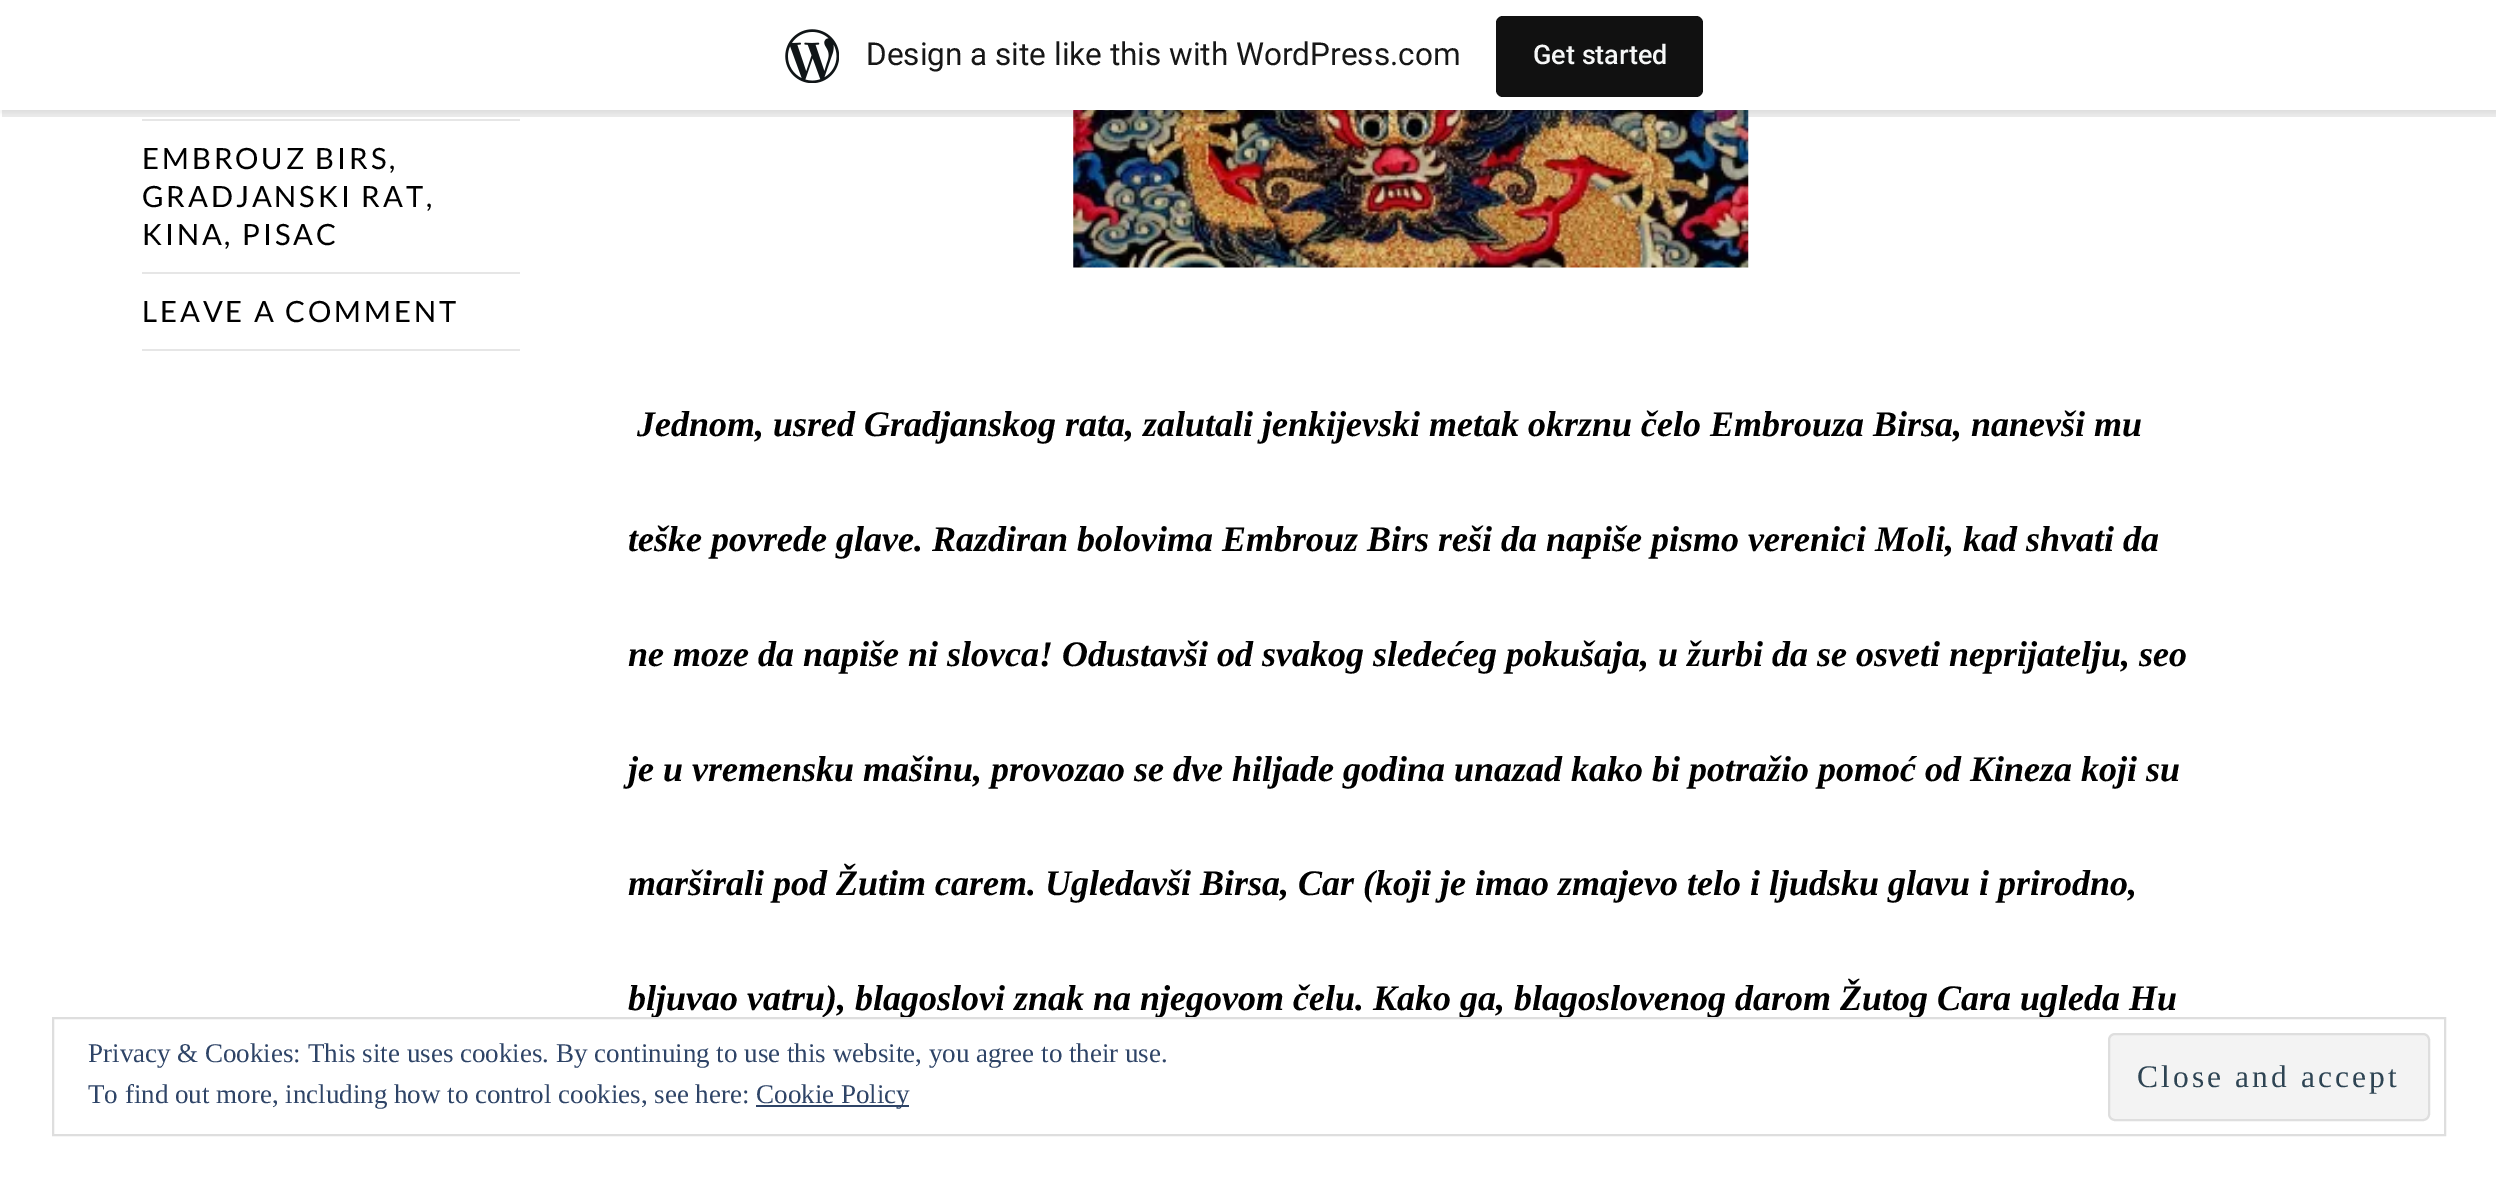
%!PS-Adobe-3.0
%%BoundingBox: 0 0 2496 1188
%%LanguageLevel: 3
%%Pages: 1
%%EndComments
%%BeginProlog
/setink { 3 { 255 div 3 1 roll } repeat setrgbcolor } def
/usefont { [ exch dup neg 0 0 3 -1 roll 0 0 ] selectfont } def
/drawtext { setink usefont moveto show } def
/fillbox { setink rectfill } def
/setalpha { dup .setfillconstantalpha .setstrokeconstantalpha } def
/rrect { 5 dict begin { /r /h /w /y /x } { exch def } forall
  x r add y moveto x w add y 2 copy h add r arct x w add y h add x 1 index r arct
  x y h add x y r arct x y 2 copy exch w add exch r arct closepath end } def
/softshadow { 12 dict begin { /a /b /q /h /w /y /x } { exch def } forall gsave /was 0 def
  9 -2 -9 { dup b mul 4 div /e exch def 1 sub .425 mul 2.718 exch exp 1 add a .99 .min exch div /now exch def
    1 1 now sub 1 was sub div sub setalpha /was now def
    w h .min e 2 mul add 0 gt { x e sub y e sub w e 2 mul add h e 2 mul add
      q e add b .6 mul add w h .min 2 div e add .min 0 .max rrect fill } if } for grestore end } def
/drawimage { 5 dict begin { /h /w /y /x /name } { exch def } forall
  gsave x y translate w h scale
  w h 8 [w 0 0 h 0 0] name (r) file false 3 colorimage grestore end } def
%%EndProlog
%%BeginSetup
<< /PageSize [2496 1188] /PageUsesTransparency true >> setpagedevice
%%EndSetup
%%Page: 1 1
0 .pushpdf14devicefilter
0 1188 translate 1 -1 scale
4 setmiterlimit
0 0 2496 1188 255 255 255 fillbox
142 119 378 2 230 230 230 fillbox
(assets/img2.rgb) 1073 110 676 158 drawimage
0 0 0 setink
0 2 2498 111 0 2 0.05 softshadow
0.08 setalpha
2 110 moveto 2 117 lineto 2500 117 lineto 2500 7 lineto 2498 7 lineto 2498 110 lineto closepath fill
1 setalpha
0 0 2496 110 255 255 255 fillbox
(assets/img1.rgb) 785 29 54 54 drawimage
(Design a site like this with WordPress.com) 866 65 /Roboto-Regular 31.5 23 23 23 drawtext
17 17 17 setink
1496 16 207 81 7 rrect fill
(Get started) 1533 64 /Roboto-Medium 27 246 247 247 drawtext
142 272 378 2 230 230 230 fillbox
/Lato-Regular 29.25 usefont
0 0 0 setink
142 169 moveto 2.9 0 (EMBROUZ BIRS,) ashow
142 207 moveto 2.9 0 (GRADJANSKI RAT,) ashow
142 245 moveto 2.9 0 (KINA, PISAC) ashow
142 349 378 2 230 230 230 fillbox
0 0 0 setink
142 322 moveto 2.9 0 (LEAVE A COMMENT) ashow
(Jednom, usred Gradjanskog rata, zalutali jenkijevski metak okrznu čelo Embrouza Birsa, nanevši mu) 637 436 /LiberationSerif-BoldItalic 36 0 0 0 drawtext
(teške povrede glave. Razdiran bolovima Embrouz Birs reši da napiše pismo verenici Moli, kad shvati da) 628 551 /LiberationSerif-BoldItalic 36 0 0 0 drawtext
(ne moze da napiše ni slovca! Odustavši od svakog sledećeg pokušaja, u žurbi da se osveti neprijatelju, seo) 628 666 /LiberationSerif-BoldItalic 36 0 0 0 drawtext
(je u vremensku mašinu, provozao se dve hiljade godina unazad kako bi potražio pomoć od Kineza koji su) 628 781 /LiberationSerif-BoldItalic 36 0 0 0 drawtext
(marširali pod Žutim carem. Ugledavši Birsa, Car \(koji je imao zmajevo telo i ljudsku glavu i prirodno,) 628 895 /LiberationSerif-BoldItalic 36 0 0 0 drawtext
(bljuvao vatru\), blagoslovi znak na njegovom čelu. Kako ga, blagoslovenog darom Žutog Cara ugleda Hu) 628 1010 /LiberationSerif-BoldItalic 36 0 0 0 drawtext
222 222 222 setink
2 setlinewidth
53 1018 2392 117 rectstroke
(Privacy & Cookies: This site uses cookies. By continuing to use this website, you agree to their use.) 88 1062 /LiberationSerif-Regular 27 46 68 103 drawtext
243 243 243 setink
2109 1034 320 86 6 rrect gsave fill grestore
222 222 222 setink
stroke
/LiberationSerif-Regular 31.5 usefont
46 68 83 setink
2137 1087 moveto 3.1 0 (Close and accept) ashow
(To find out more, including how to control cookies, see here:) 88 1103 /LiberationSerif-Regular 27 46 68 103 drawtext
756 1105 153 2 46 68 103 fillbox
(Cookie Policy) 756 1103 /LiberationSerif-Regular 27 46 68 103 drawtext
.poppdf14devicefilter showpage
%%EOF
